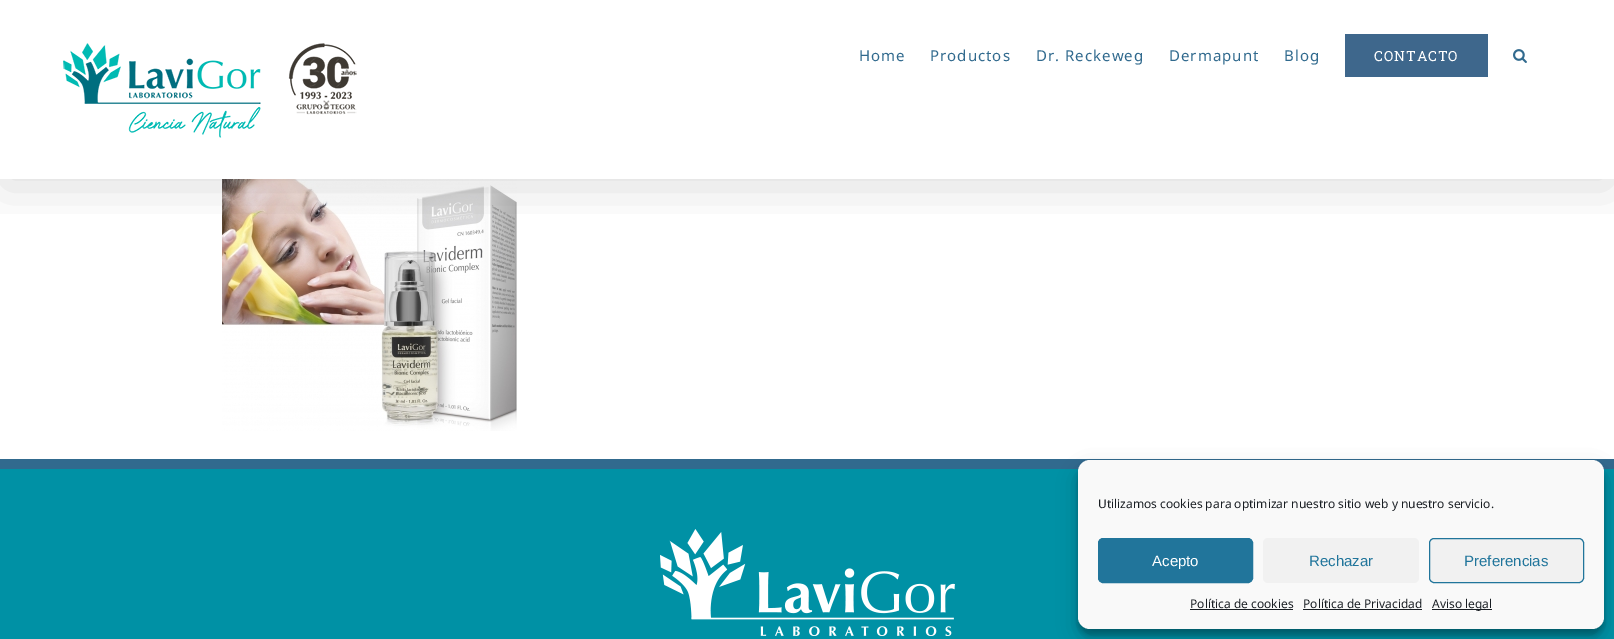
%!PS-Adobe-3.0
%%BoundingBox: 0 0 1614 639
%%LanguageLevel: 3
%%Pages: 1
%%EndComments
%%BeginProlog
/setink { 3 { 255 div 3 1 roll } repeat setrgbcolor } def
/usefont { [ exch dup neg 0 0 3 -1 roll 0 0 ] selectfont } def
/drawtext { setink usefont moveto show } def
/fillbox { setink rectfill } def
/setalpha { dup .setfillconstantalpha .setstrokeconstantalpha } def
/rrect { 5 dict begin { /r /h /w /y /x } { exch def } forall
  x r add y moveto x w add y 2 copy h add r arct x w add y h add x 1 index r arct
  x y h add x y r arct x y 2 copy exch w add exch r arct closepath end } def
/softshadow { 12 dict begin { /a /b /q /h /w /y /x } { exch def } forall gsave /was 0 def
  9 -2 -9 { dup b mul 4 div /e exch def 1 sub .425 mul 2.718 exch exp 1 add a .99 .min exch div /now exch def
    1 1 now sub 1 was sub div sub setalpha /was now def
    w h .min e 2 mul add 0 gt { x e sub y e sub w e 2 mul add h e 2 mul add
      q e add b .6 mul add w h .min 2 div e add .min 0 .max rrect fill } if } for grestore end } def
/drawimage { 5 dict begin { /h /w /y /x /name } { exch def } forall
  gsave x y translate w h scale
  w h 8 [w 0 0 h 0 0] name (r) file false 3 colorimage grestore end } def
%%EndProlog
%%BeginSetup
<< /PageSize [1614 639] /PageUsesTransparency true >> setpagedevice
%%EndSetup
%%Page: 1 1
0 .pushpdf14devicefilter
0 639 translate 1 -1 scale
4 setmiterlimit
0 0 1614 639 255 255 255 fillbox
(assets/img3.rgb) 222 179 295 252 drawimage
gsave
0 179 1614 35 rectclip
0 0 0 setink
2 12 1610 175 0 25 0.14 softshadow
grestore
(assets/img1.rgb) 63 43 294 95 drawimage
/NotoSans-Regular 15 usefont
49 106 142 setink
859 61 moveto 1 0 (Home) ashow
930 61 moveto 1 0 (Productos) ashow
1036 61 moveto 1 0 (Dr. Reckeweg) ashow
1169 61 moveto 1 0 (Dermapunt) ashow
1284 61 moveto 1 0 (Blog) ashow
1345 34 143 43 62 103 140 fillbox
/RobotoSlab-Regular 14 usefont
255 255 255 setink
1374 61 moveto 1 0 (CONTACTO) ashow
(assets/img2.rgb) 1513 49 14 14 drawimage
0 469 1614 170 0 145 165 fillbox
0 459 1614 10 49 106 142 fillbox
(assets/img4.rgb) 660 529 295 107 drawimage
0 0 0 setink
1078 466 526 169 12 3 0.23 softshadow
1078 470 526 169 12 10 0.19 softshadow
249 249 249 setink
1078 460 526 169 12 rrect fill
(Utilizamos cookies para optimizar nuestro sitio web y nuestro servicio.) 1098 508 /NotoSans-Regular 12 25 30 35 drawtext
33 117 155 setink
1098.5 538.5 154 44 4.5 rrect gsave fill grestore
stroke
(Acepto) 1152 566 /LiberationSans-Regular 15 255 255 255 drawtext
241 241 241 setink
1263 538 156 45 5 rrect fill
(Rechazar) 1309 566 /LiberationSans-Regular 15 33 117 155 drawtext
241 241 241 setink
1429.5 538.5 154 44 4.5 rrect gsave fill grestore
33 117 155 setink
stroke
(Preferencias) 1464 566 /LiberationSans-Regular 15 33 117 155 drawtext
(Política de cookies) 1190 608 /NotoSans-Regular 12 25 30 35 drawtext
1190 609 103 1 25 30 35 fillbox
(Política de Privacidad) 1303 608 /NotoSans-Regular 12 25 30 35 drawtext
1303 609 119 1 25 30 35 fillbox
1432 609 60 1 25 30 35 fillbox
(Aviso legal) 1432 608 /NotoSans-Regular 12 25 30 35 drawtext
.poppdf14devicefilter showpage
%%EOF
